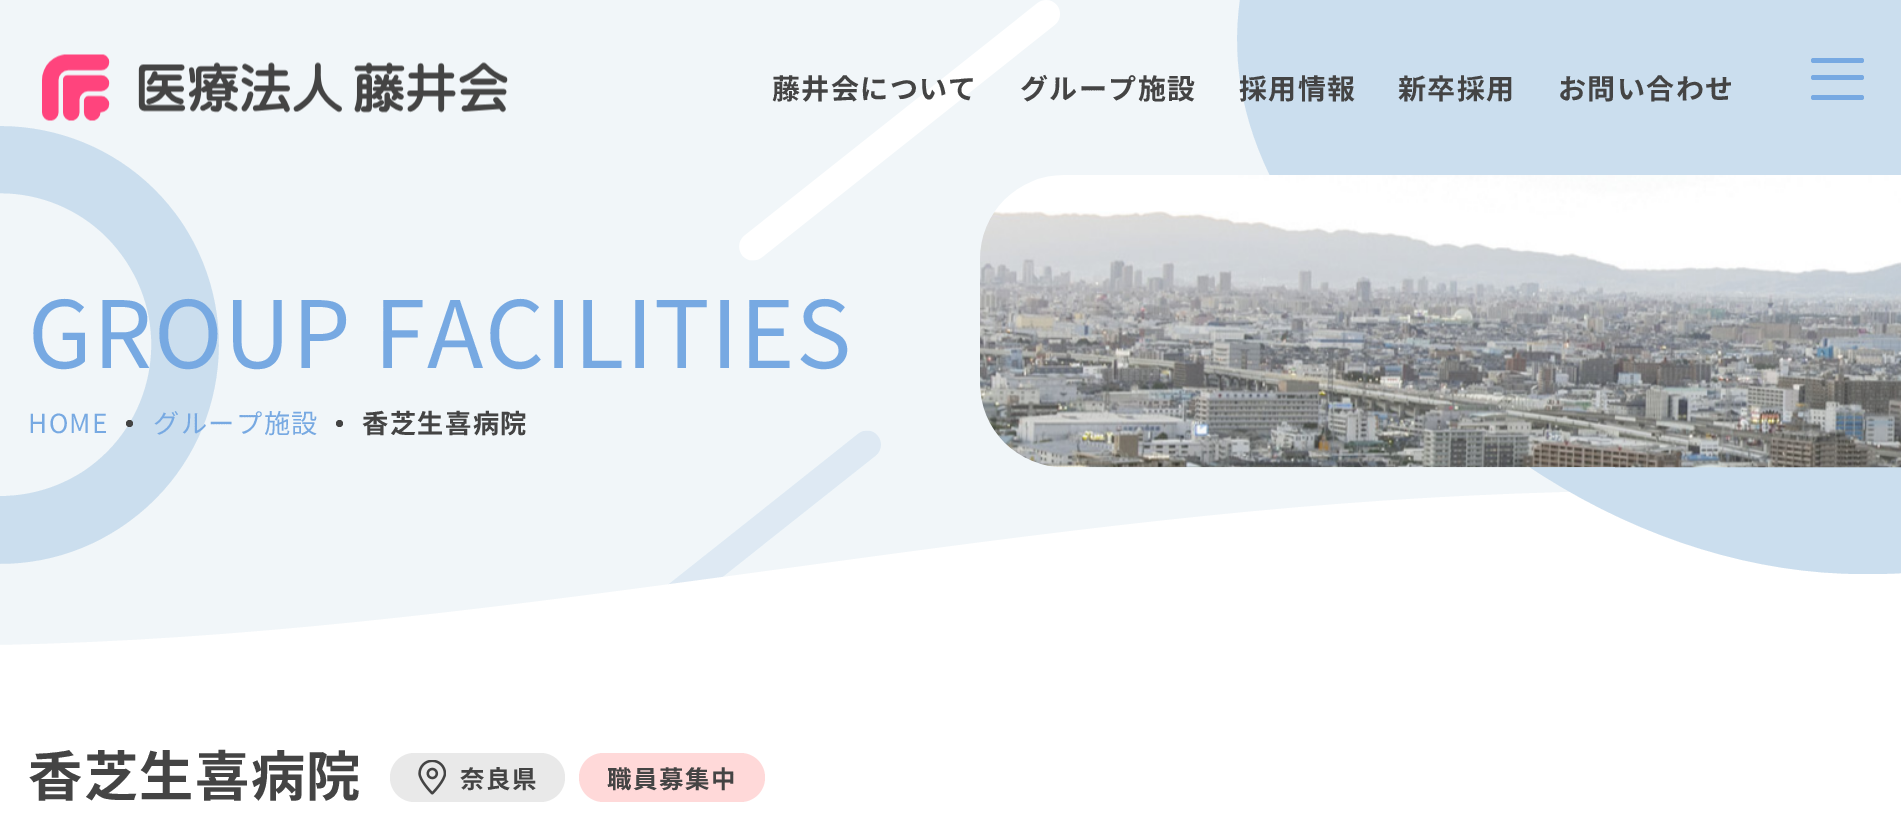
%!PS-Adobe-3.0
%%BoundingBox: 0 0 1901 832
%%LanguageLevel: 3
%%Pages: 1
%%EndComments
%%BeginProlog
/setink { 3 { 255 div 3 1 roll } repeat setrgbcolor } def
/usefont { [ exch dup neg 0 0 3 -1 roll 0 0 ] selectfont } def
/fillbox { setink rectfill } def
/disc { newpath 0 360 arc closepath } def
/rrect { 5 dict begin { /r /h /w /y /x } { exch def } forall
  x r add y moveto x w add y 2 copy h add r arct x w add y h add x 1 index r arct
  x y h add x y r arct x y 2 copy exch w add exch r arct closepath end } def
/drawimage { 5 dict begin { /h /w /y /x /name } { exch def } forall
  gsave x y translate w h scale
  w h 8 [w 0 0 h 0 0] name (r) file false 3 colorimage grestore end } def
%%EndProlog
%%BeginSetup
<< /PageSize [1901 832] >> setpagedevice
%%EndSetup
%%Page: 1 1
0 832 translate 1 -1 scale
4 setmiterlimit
0 0 1901 832 255 255 255 fillbox
0 0 1570 645 241 246 249 fillbox
(assets/img1.rgb) 42 54 466 67 drawimage
(assets/img2.rgb) 667 0 393 585 drawimage
/NotoSansJP-Bold 28 usefont
68 68 68 setink
772 99 moveto 1.4 0 (藤井会について) ashow
1020 99 moveto 1.4 0 (グループ施設) ashow
203 222 238 setink
182 223 moveto 249 324 222 460 121 527 curveto 21 594 -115 567 -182 466 curveto -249 366 -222 230 -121 163 curveto -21 96 115 123 182 223 curveto -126 429 moveto -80 498 14 517 84 471 curveto 154 424 172 330 126 261 curveto 80 191 -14 172 -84 219 curveto -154 265 -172 359 -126 429 curveto fill
255 255 255 setink
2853 691 moveto -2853 691 lineto -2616 654 lineto -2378 617 -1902 544 -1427 553 curveto -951 562 -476 655 0 645 curveto 476 636 951 525 1427 498 curveto 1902 470 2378 525 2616 553 curveto 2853 581 lineto closepath fill
203 222 238 setink
1284 202 moveto 1243 131 1231 64 1240 0 curveto 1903 0 lineto 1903 573 lineto 1890 574 1876 574 1863 574 curveto 1648 574 1419 437 1284 202 curveto closepath fill
68 68 68 setink
1239 99 moveto 1.4 0 (採用情報) ashow
1398 99 moveto 1.4 0 (新卒採用) ashow
1558 99 moveto 1.4 0 (お問い合わせ) ashow
119 169 226 setink
1811 58 53 5 2.5 rrect fill
1811 75 53 5 2.5 rrect fill
1811 95 53 5 2.5 rrect fill
/NotoSansJP-Regular 92.75 usefont
28 368 moveto 1.4 0 (GROUP FACILITIES) ashow
/NotoSansJP-Regular 26.25 usefont
28 433 moveto 1.4 0 (HOME) ashow
68 68 68 setink
129.5 423.5 3.5 disc fill
119 169 226 setink
153 433 moveto 1.4 0 (グループ施設) ashow
68 68 68 setink
339.5 423.5 3.5 disc fill
/NotoSansJP-Bold 26.25 usefont
362 433 moveto 1.4 0 (香芝生喜病院) ashow
(assets/img3.rgb) 980 175 921 293 drawimage
/NotoSansJP-Bold 54.25 usefont
28 796 moveto 1.4 0 (香芝生喜病院) ashow
233 233 233 setink
390 753 175 49 24.5 rrect fill
(assets/img4.rgb) 418 760 28 35 drawimage
/NotoSansJP-Bold 24.5 usefont
68 68 68 setink
460 788 moveto 1.4 0 (奈良県) ashow
255 217 217 setink
579 753 186 49 24.5 rrect fill
68 68 68 setink
607 788 moveto 1.4 0 (職員募集中) ashow
showpage
%%EOF
